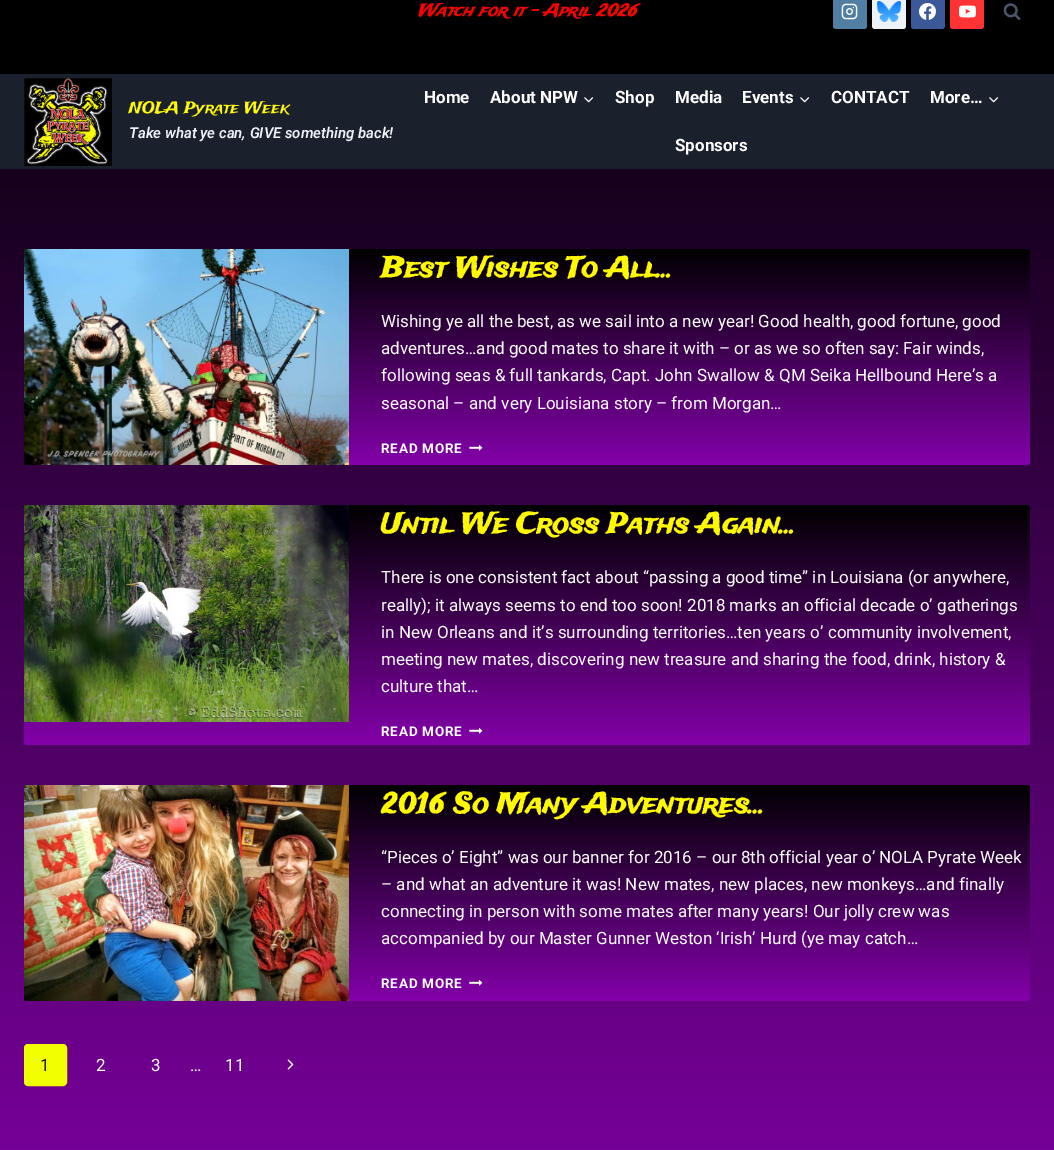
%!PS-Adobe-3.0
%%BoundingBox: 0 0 1054 1150
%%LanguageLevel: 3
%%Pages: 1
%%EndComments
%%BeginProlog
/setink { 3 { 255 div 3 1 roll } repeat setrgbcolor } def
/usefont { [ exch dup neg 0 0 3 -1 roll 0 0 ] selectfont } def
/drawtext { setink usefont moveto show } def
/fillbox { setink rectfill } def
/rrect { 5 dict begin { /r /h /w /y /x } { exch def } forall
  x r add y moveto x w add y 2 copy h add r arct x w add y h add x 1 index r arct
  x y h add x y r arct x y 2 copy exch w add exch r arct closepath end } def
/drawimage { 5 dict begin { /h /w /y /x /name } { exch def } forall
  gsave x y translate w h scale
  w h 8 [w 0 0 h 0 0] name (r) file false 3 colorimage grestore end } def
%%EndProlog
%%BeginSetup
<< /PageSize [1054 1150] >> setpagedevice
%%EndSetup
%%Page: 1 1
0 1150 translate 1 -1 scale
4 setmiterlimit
0 0 1054 1150 255 255 255 fillbox
gsave 0 169 moveto 1054 169 lineto 1054 1150 lineto 0 1150 lineto closepath clip newpath
<< /ShadingType 2 /ColorSpace /DeviceRGB /Coords [527 -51 527 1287] /Extend [true true] /Function << /FunctionType 2 /Domain [0 1] /C0 [0 0 0] /C1 [0.514 0 0.663] /N 1 >> >> shfill grestore
0 0 1054 74 0 0 0 fillbox
(Watch for it - April 2026) 417 16 /TradeWinds-BoldItalic 17 244 3 3 drawtext
81 127 164 setink
833 -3 34 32 3 rrect fill
(assets/img1.rgb) 841 3 17 17 drawimage
237 242 247 setink
872 -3 34 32 3 rrect fill
(assets/img2.rgb) 877 1 24 21 drawimage
59 89 152 setink
911 -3 34 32 3 rrect fill
(assets/img3.rgb) 919 3 17 17 drawimage
255 51 51 setink
950 -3 34 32 3 rrect fill
(assets/img4.rgb) 959 5 17 13 drawimage
(assets/img5.rgb) 1003 3 18 17 drawimage
0 74 1054 95 26 32 44 fillbox
(assets/img6.rgb) 24 78 88 88 drawimage
(NOLA Pyrate Week) 129 113 /TradeWinds-Regular 16 255 250 8 drawtext
(Take what ye can, GIVE something back!) 129 138 /Roboto-SemiBoldItalic 15 237 242 247 drawtext
(Home) 424 103 /Roboto-Bold 17 255 255 255 drawtext
(About NPW) 490 103 /Roboto-Bold 17 255 255 255 drawtext
(assets/img7.rgb) 584 97 10 6 drawimage
(Shop) 615 103 /Roboto-Bold 17 255 255 255 drawtext
(Media) 675 103 /Roboto-Bold 17 255 255 255 drawtext
(Events) 742 103 /Roboto-Bold 17 255 255 255 drawtext
(assets/img7.rgb) 800 97 10 6 drawimage
(CONTACT) 831 103 /Roboto-Bold 17 255 255 255 drawtext
(More…) 930 103 /Roboto-Bold 17 255 255 255 drawtext
(assets/img7.rgb) 989 97 10 6 drawimage
(Sponsors) 675 151 /Roboto-Bold 17 255 255 255 drawtext
gsave 24 249 1006 216 4 rrect clip newpath
<< /ShadingType 2 /ColorSpace /DeviceRGB /Coords [527 249 527 465] /Extend [true true] /Function << /FunctionType 2 /Domain [0 1] /C0 [0 0 0] /C1 [0.514 0 0.663] /N 1 >> >> shfill grestore
(assets/img8.rgb) 24 249 325 216 drawimage
(Best Wishes To All…) 381 277 /TradeWinds-Bold 28 255 249 0 drawtext
(Wishing ye all the best, as we sail into a new year! Good health, good fortune, good) 381 327 /Roboto-Regular 17 255 255 255 drawtext
(adventures…and good mates to share it with – or as we so often say: Fair winds,) 381 354 /Roboto-Regular 17 255 255 255 drawtext
(following seas & full tankards, Capt. John Swallow & QM Seika Hellbound Here’s a) 381 381 /Roboto-Regular 17 255 255 255 drawtext
(seasonal – and very Louisiana story – from Morgan…) 381 409 /Roboto-Regular 17 255 255 255 drawtext
/Roboto-Bold 13.5 usefont
381 453 moveto 0.75 0 (READ MORE) ashow
(assets/img9.rgb) 469 444 14 7 drawimage
gsave 24 505 1006 240 4 rrect clip newpath
<< /ShadingType 2 /ColorSpace /DeviceRGB /Coords [527 505 527 745] /Extend [true true] /Function << /FunctionType 2 /Domain [0 1] /C0 [0 0 0] /C1 [0.514 0 0.663] /N 1 >> >> shfill grestore
(assets/img10.rgb) 24 505 325 217 drawimage
(Until We Cross Paths Again…) 381 533 /TradeWinds-Bold 28 255 249 0 drawtext
(There is one consistent fact about “passing a good time” in Louisiana \(or anywhere,) 381 583 /Roboto-Regular 17 255 255 255 drawtext
(really\); it always seems to end too soon! 2018 marks an official decade o’ gatherings) 381 611 /Roboto-Regular 17 255 255 255 drawtext
(in New Orleans and it’s surrounding territories…ten years o’ community involvement,) 381 638 /Roboto-Regular 17 255 255 255 drawtext
(meeting new mates, discovering new treasure and sharing the food, drink, history &) 381 665 /Roboto-Regular 17 255 255 255 drawtext
(culture that…) 381 692 /Roboto-Regular 17 255 255 255 drawtext
/Roboto-Bold 13.5 usefont
381 736 moveto 0.75 0 (READ MORE) ashow
(assets/img11.rgb) 469 727 14 7 drawimage
gsave 24 785 1006 216 4 rrect clip newpath
<< /ShadingType 2 /ColorSpace /DeviceRGB /Coords [527 785 527 1001] /Extend [true true] /Function << /FunctionType 2 /Domain [0 1] /C0 [0 0 0] /C1 [0.514 0 0.663] /N 1 >> >> shfill grestore
(assets/img12.rgb) 24 785 325 216 drawimage
(2016 So Many Adventures…) 381 813 /TradeWinds-Bold 28 255 249 0 drawtext
(“Pieces o’ Eight” was our banner for 2016 – our 8th official year o’ NOLA Pyrate Week) 381 863 /Roboto-Regular 17 255 255 255 drawtext
(– and what an adventure it was! New mates, new places, new monkeys…and finally) 381 890 /Roboto-Regular 17 255 255 255 drawtext
(connecting in person with some mates after many years! Our jolly crew was) 381 917 /Roboto-Regular 17 255 255 255 drawtext
(accompanied by our Master Gunner Weston ‘Irish’ Hurd \(ye may catch…) 381 944 /Roboto-Regular 17 255 255 255 drawtext
/Roboto-Bold 13.5 usefont
381 988 moveto 0.75 0 (READ MORE) ashow
(assets/img13.rgb) 469 979 14 7 drawimage
241 255 0 setink
25 1045 41 40 3 rrect gsave fill grestore
2 setlinewidth
stroke
(1) 40 1071 /Roboto-Regular 17 26 32 44 drawtext
(2) 96 1071 /Roboto-Regular 17 255 255 255 drawtext
(3) 151 1071 /Roboto-Regular 17 255 255 255 drawtext
(11) 225 1071 /Roboto-Regular 17 255 255 255 drawtext
(assets/img14.rgb) 287 1059 7 11 drawimage
(…) 190 1071 /Roboto-Regular 17 255 255 255 drawtext
showpage
%%EOF
